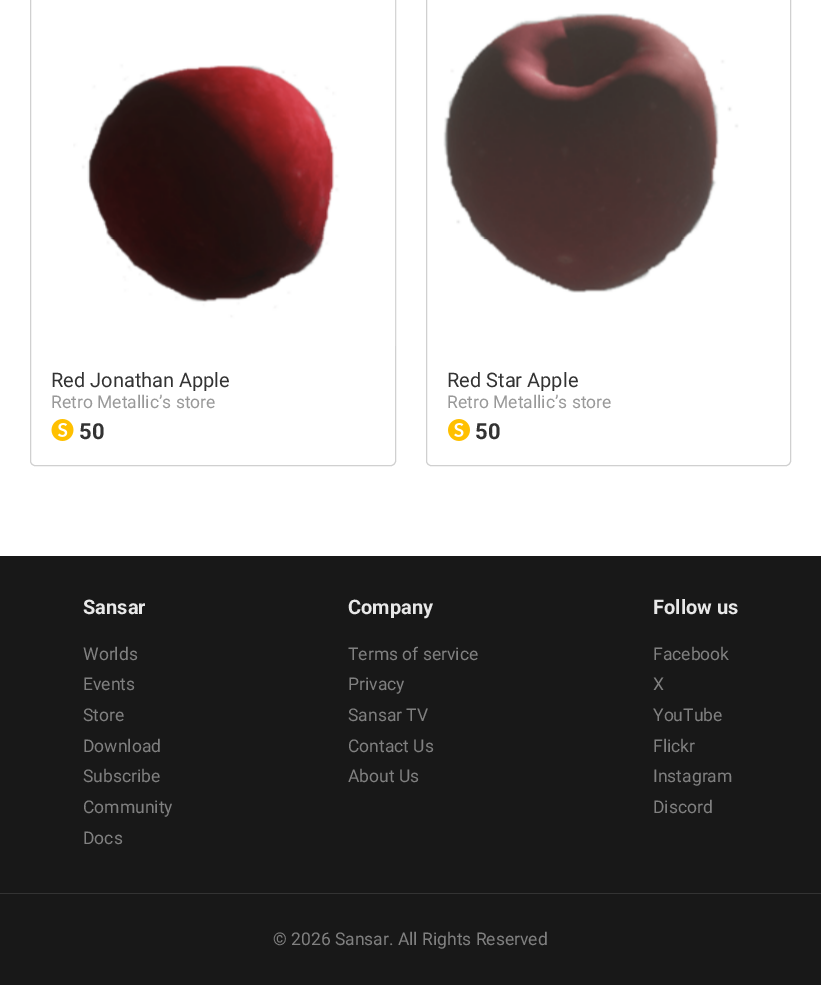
%!PS-Adobe-3.0
%%BoundingBox: 0 0 821 985
%%LanguageLevel: 3
%%Pages: 1
%%EndComments
%%BeginProlog
/setink { 3 { 255 div 3 1 roll } repeat setrgbcolor } def
/usefont { [ exch dup neg 0 0 3 -1 roll 0 0 ] selectfont } def
/drawtext { setink usefont moveto show } def
/fillbox { setink rectfill } def
/rrect { 5 dict begin { /r /h /w /y /x } { exch def } forall
  x r add y moveto x w add y 2 copy h add r arct x w add y h add x 1 index r arct
  x y h add x y r arct x y 2 copy exch w add exch r arct closepath end } def
/drawimage { 5 dict begin { /h /w /y /x /name } { exch def } forall
  gsave x y translate w h scale
  w h 8 [w 0 0 h 0 0] name (r) file false 3 colorimage grestore end } def
%%EndProlog
%%BeginSetup
<< /PageSize [821 985] >> setpagedevice
%%EndSetup
%%Page: 1 1
0 985 translate 1 -1 scale
4 setmiterlimit
0 0 821 985 255 255 255 fillbox
208 208 208 setink
30.5 -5.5 365 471 4.5 rrect stroke
(assets/img1.rgb) 73 0 323 346 drawimage
(Red Jonathan Apple) 51 387 /Roboto-Regular 20 51 51 51 drawtext
(Retro Metallic’s store) 51 408 /Roboto-Regular 17.5 153 153 153 drawtext
(assets/img2.rgb) 51 419 23 22 drawimage
(50) 79 439 /Roboto-Bold 22 51 51 51 drawtext
208 208 208 setink
426.5 -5.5 364 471 4.5 rrect stroke
(assets/img3.rgb) 443 13 296 280 drawimage
(Red Star Apple) 447 387 /Roboto-Regular 20 51 51 51 drawtext
(Retro Metallic’s store) 447 408 /Roboto-Regular 17.5 153 153 153 drawtext
(assets/img4.rgb) 448 419 22 22 drawimage
(50) 475 439 /Roboto-Bold 22 51 51 51 drawtext
0 556 821 429 24 24 24 fillbox
(Sansar) 83 614 /Roboto-Bold 20 232 232 232 drawtext
(Worlds) 83 660 /Roboto-Regular 17.5 128 128 128 drawtext
(Events) 83 690 /Roboto-Regular 17.5 128 128 128 drawtext
(Store) 83 721 /Roboto-Regular 17.5 128 128 128 drawtext
(Download) 83 752 /Roboto-Regular 17.5 128 128 128 drawtext
(Subscribe) 83 782 /Roboto-Regular 17.5 128 128 128 drawtext
(Community) 83 813 /Roboto-Regular 17.5 128 128 128 drawtext
(Docs) 83 844 /Roboto-Regular 17.5 128 128 128 drawtext
(Company) 348 614 /Roboto-Bold 20 232 232 232 drawtext
(Terms of service) 348 660 /Roboto-Regular 17.5 128 128 128 drawtext
(Privacy) 348 690 /Roboto-Regular 17.5 128 128 128 drawtext
(Sansar TV) 348 721 /Roboto-Regular 17.5 128 128 128 drawtext
(Contact Us) 348 752 /Roboto-Regular 17.5 128 128 128 drawtext
(About Us) 348 782 /Roboto-Regular 17.5 128 128 128 drawtext
(Follow us) 653 614 /Roboto-Bold 20 232 232 232 drawtext
(Facebook) 653 660 /Roboto-Regular 17.5 128 128 128 drawtext
(X) 653 690 /Roboto-Regular 17.5 128 128 128 drawtext
(YouTube) 653 721 /Roboto-Regular 17.5 128 128 128 drawtext
(Flickr) 653 752 /Roboto-Regular 17.5 128 128 128 drawtext
(Instagram) 653 782 /Roboto-Regular 17.5 128 128 128 drawtext
(Discord) 653 813 /Roboto-Regular 17.5 128 128 128 drawtext
0 893 821 1 51 51 51 fillbox
(© 2026 Sansar. All Rights Reserved) 273 945 /Roboto-Regular 17.5 128 128 128 drawtext
showpage
%%EOF
